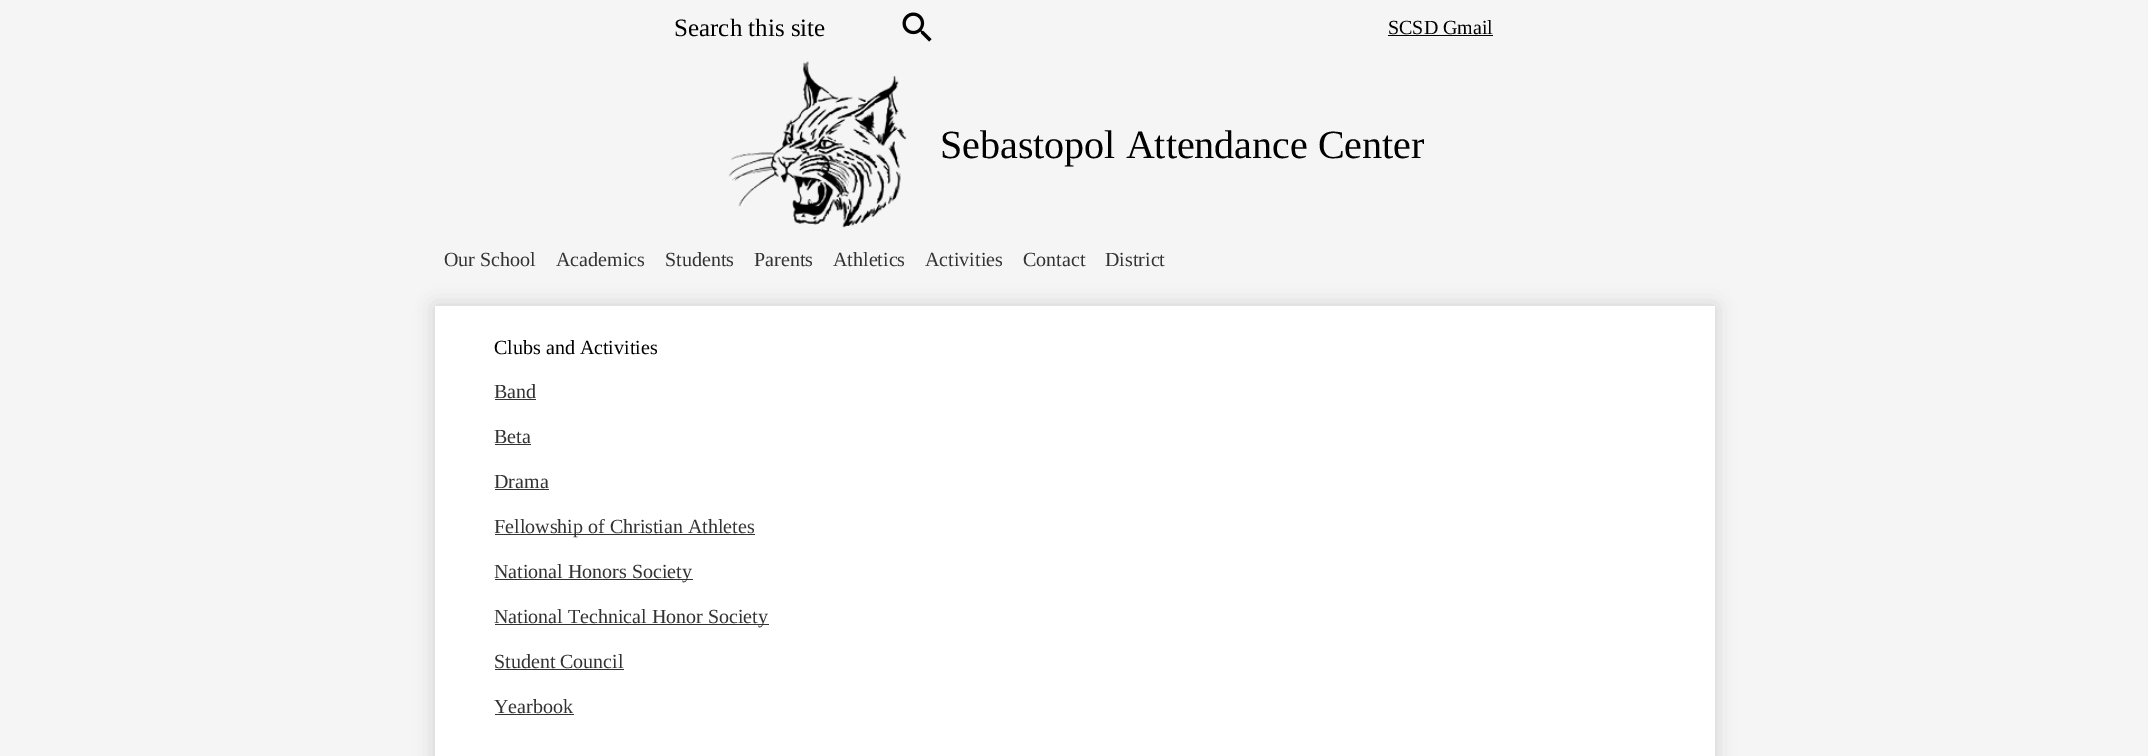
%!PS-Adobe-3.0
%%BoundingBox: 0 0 2148 756
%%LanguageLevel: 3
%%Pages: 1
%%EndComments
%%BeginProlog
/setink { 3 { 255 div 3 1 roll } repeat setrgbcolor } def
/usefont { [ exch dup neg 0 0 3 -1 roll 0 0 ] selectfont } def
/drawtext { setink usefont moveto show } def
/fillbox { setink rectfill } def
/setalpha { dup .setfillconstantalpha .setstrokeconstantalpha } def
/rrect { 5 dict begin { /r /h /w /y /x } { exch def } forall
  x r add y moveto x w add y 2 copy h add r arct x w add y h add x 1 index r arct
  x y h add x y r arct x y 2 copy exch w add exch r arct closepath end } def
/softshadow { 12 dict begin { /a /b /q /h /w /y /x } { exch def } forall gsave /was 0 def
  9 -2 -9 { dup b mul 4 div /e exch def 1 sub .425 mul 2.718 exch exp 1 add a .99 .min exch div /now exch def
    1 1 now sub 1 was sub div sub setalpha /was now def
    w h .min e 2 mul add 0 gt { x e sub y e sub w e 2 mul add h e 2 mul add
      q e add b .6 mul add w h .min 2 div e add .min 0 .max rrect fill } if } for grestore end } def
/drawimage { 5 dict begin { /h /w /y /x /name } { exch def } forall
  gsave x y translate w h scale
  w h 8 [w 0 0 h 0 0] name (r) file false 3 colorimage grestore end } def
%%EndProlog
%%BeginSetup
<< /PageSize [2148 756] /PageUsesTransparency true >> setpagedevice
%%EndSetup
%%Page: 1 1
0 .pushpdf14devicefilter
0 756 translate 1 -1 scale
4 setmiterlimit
0 0 2148 756 245 245 245 fillbox
(Search this site) 674 36 /LiberationSerif-Regular 25 0 0 0 drawtext
(assets/img1.rgb) 902 12 30 30 drawimage
(SCSD Gmail) 1388 34 /LiberationSerif-Regular 20 0 0 0 drawtext
1388 35 105 1 0 0 0 fillbox
(assets/img2.rgb) 728 61 179 167 drawimage
(Sebastopol Attendance Center) 940 158 /LiberationSerif-Regular 40 0 0 0 drawtext
(Our School) 444 266 /LiberationSerif-Regular 20 51 51 51 drawtext
(Academics) 556 266 /LiberationSerif-Regular 20 51 51 51 drawtext
(Students) 665 266 /LiberationSerif-Regular 20 51 51 51 drawtext
(Parents) 754 266 /LiberationSerif-Regular 20 51 51 51 drawtext
(Athletics) 833 266 /LiberationSerif-Regular 20 51 51 51 drawtext
(Activities) 925 266 /LiberationSerif-Regular 20 51 51 51 drawtext
(Contact) 1023 266 /LiberationSerif-Regular 20 51 51 51 drawtext
(District) 1105 266 /LiberationSerif-Regular 20 51 51 51 drawtext
0 0 0 setink
435 306 1280 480 0 10 0.15 softshadow
435 306 1280 450 255 255 255 fillbox
(Clubs and Activities) 494 354 /LiberationSerif-Regular 20 0 0 0 drawtext
(Band) 494 398 /LiberationSerif-Regular 20 51 51 51 drawtext
495 399 41 1 51 51 51 fillbox
(Beta) 494 443 /LiberationSerif-Regular 20 51 51 51 drawtext
495 444 36 1 51 51 51 fillbox
(Drama) 494 488 /LiberationSerif-Regular 20 51 51 51 drawtext
495 489 54 1 51 51 51 fillbox
495 534 260 1 51 51 51 fillbox
(Fellowship of Christian Athletes) 494 533 /LiberationSerif-Regular 20 51 51 51 drawtext
495 579 198 1 51 51 51 fillbox
(National Honors Society) 494 578 /LiberationSerif-Regular 20 51 51 51 drawtext
495 624 274 1 51 51 51 fillbox
(National Technical Honor Society) 494 623 /LiberationSerif-Regular 20 51 51 51 drawtext
(Student Council) 494 668 /LiberationSerif-Regular 20 51 51 51 drawtext
495 669 129 1 51 51 51 fillbox
(Yearbook) 494 713 /LiberationSerif-Regular 20 51 51 51 drawtext
495 714 79 1 51 51 51 fillbox
.poppdf14devicefilter showpage
%%EOF
